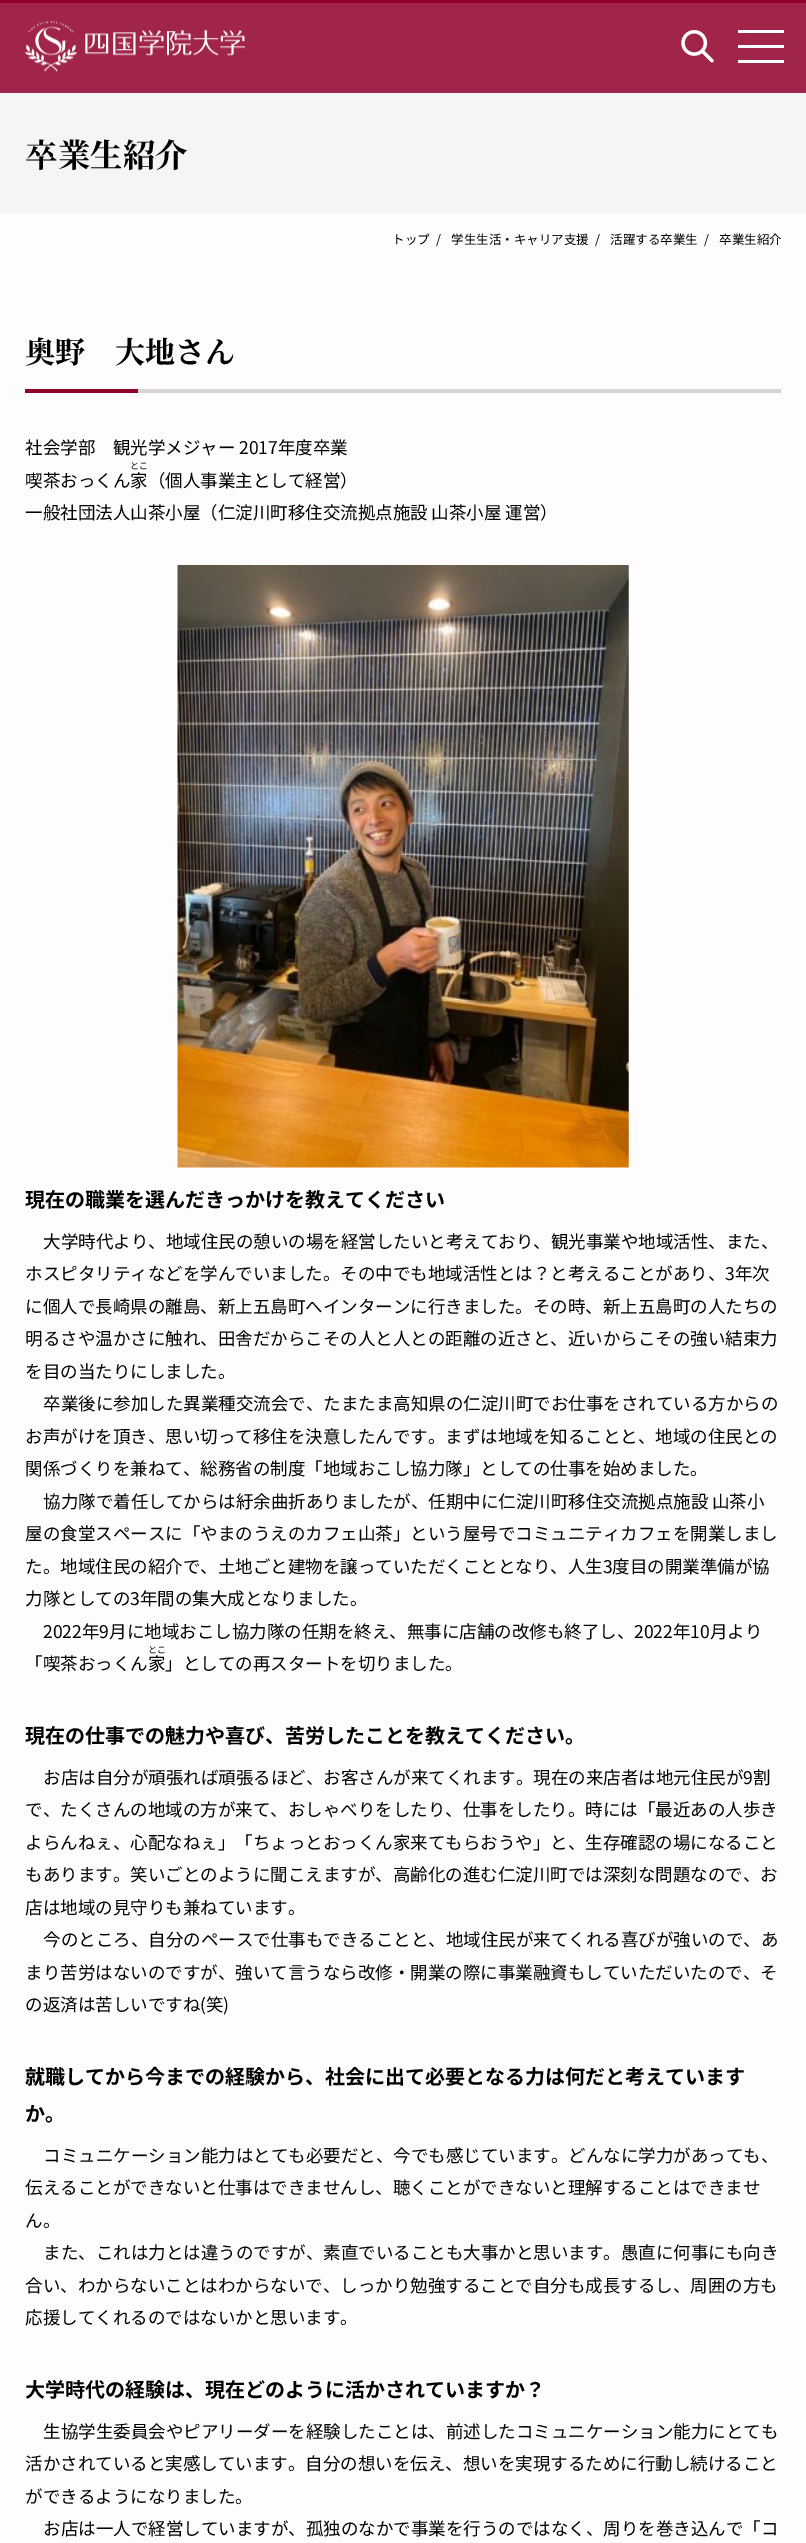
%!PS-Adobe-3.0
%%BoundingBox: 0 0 806 2543
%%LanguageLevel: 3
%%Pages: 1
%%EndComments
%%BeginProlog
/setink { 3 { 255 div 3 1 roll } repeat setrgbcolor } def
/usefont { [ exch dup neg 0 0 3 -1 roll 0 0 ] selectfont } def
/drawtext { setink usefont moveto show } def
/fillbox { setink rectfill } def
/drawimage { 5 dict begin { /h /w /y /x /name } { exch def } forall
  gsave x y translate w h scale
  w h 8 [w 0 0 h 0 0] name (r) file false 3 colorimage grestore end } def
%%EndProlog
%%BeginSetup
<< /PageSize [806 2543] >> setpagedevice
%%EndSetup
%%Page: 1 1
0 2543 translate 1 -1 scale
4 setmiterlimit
0 0 806 2543 254 252 252 fillbox
0 3 806 90 161 37 75 fillbox
0 0 806 3 146 0 45 fillbox
(assets/img1.rgb) 25 21 220 51 drawimage
(assets/img2.rgb) 681 30 33 33 drawimage
738 45 46 3 255 255 255 fillbox
738 30 46 3 255 255 255 fillbox
738 60 46 3 255 255 255 fillbox
0 93 806 121 245 245 245 fillbox
(卒業生紹介) 25 167 /NotoSerifJP-Bold 32.5 0 0 0 drawtext
(トップ) 392 244 /NotoSansJP-Regular 12.5 0 0 0 drawtext
(/) 436 244 /NotoSansJP-Regular 12.5 0 0 0 drawtext
(学生生活・キャリア支援) 451 244 /NotoSansJP-Regular 12.5 0 0 0 drawtext
(/) 595 244 /NotoSansJP-Regular 12.5 0 0 0 drawtext
(活躍する卒業生) 610 244 /NotoSansJP-Regular 12.5 0 0 0 drawtext
(/) 704 244 /NotoSansJP-Regular 12.5 0 0 0 drawtext
(卒業生紹介) 719 244 /NotoSansJP-Regular 12.5 0 0 0 drawtext
(奥野　大地さん) 25 363 /NotoSerifJP-Bold 30 0 0 0 drawtext
25 389 113 4 146 0 45 fillbox
138 389 643 4 212 212 212 fillbox
(社会学部　観光学メジャー 2017年度卒業) 25 454 /NotoSansJP-Regular 17.5 0 0 0 drawtext
(とこ) 130 469 /NotoSansJP-Regular 9 0 0 0 drawtext
(喫茶おっくん家（個人事業主として経営）) 25 487 /NotoSansJP-Regular 17.5 0 0 0 drawtext
(一般社団法人山茶小屋（仁淀川町移住交流拠点施設 山茶小屋 運営）) 25 519 /NotoSansJP-Regular 17.5 0 0 0 drawtext
(assets/img3.rgb) 177 565 452 603 drawimage
(現在の職業を選んだきっかけを教えてください) 25 1207 /NotoSansJP-Bold 20 0 0 0 drawtext
(大学時代より、地域住民の憩いの場を経営したいと考えており、観光事業や地域活性、また、) 43 1248 /NotoSansJP-Regular 17.5 0 0 0 drawtext
(ホスピタリティなどを学んでいました。その中でも地域活性とは？と考えることがあり、3年次) 25 1280 /NotoSansJP-Regular 17.5 0 0 0 drawtext
(に個人で長崎県の離島、新上五島町へインターンに行きました。その時、新上五島町の人たちの) 25 1313 /NotoSansJP-Regular 17.5 0 0 0 drawtext
(明るさや温かさに触れ、田舎だからこその人と人との距離の近さと、近いからこその強い結束力) 25 1345 /NotoSansJP-Regular 17.5 0 0 0 drawtext
(を目の当たりにしました。) 25 1378 /NotoSansJP-Regular 17.5 0 0 0 drawtext
(卒業後に参加した異業種交流会で、たまたま高知県の仁淀川町でお仕事をされている方からの) 43 1410 /NotoSansJP-Regular 17.5 0 0 0 drawtext
(お声がけを頂き、思い切って移住を決意したんです。まずは地域を知ることと、地域の住民との) 25 1443 /NotoSansJP-Regular 17.5 0 0 0 drawtext
(関係づくりを兼ねて、総務省の制度「地域おこし協力隊」としての仕事を始めました。) 25 1475 /NotoSansJP-Regular 17.5 0 0 0 drawtext
(協力隊で着任してからは紆余曲折ありましたが、任期中に仁淀川町移住交流拠点施設 山茶小) 43 1508 /NotoSansJP-Regular 17.5 0 0 0 drawtext
(屋の食堂スペースに「やまのうえのカフェ山茶」という屋号でコミュニティカフェを開業しまし) 25 1540 /NotoSansJP-Regular 17.5 0 0 0 drawtext
(た。地域住民の紹介で、土地ごと建物を譲っていただくこととなり、人生3度目の開業準備が協) 25 1573 /NotoSansJP-Regular 17.5 0 0 0 drawtext
(力隊としての3年間の集大成となりました。) 25 1605 /NotoSansJP-Regular 17.5 0 0 0 drawtext
(2022年9月に地域おこし協力隊の任期を終え、無事に店舗の改修も終了し、2022年10月より) 43 1638 /NotoSansJP-Regular 17.5 0 0 0 drawtext
(とこ) 148 1653 /NotoSansJP-Regular 9 0 0 0 drawtext
(「喫茶おっくん家」としての再スタートを切りました。) 25 1670 /NotoSansJP-Regular 17.5 0 0 0 drawtext
(現在の仕事での魅力や喜び、苦労したことを教えてください。) 25 1743 /NotoSansJP-Bold 20 0 0 0 drawtext
(お店は自分が頑張れば頑張るほど、お客さんが来てくれます。現在の来店者は地元住民が9割) 43 1784 /NotoSansJP-Regular 17.5 0 0 0 drawtext
(で、たくさんの地域の方が来て、おしゃべりをしたり、仕事をしたり。時には「最近あの人歩き) 25 1816 /NotoSansJP-Regular 17.5 0 0 0 drawtext
(よらんねぇ、心配なねぇ」「ちょっとおっくん家来てもらおうや」と、生存確認の場になること) 25 1849 /NotoSansJP-Regular 17.5 0 0 0 drawtext
(もあります。笑いごとのように聞こえますが、高齢化の進む仁淀川町では深刻な問題なので、お) 25 1881 /NotoSansJP-Regular 17.5 0 0 0 drawtext
(店は地域の見守りも兼ねています。) 25 1914 /NotoSansJP-Regular 17.5 0 0 0 drawtext
(今のところ、自分のペースで仕事もできることと、地域住民が来てくれる喜びが強いので、あ) 43 1946 /NotoSansJP-Regular 17.5 0 0 0 drawtext
(まり苦労はないのですが、強いて言うなら改修・開業の際に事業融資もしていただいたので、そ) 25 1979 /NotoSansJP-Regular 17.5 0 0 0 drawtext
(の返済は苦しいですね\(笑\)) 25 2011 /NotoSansJP-Regular 17.5 0 0 0 drawtext
(就職してから今までの経験から、社会に出て必要となる力は何だと考えています) 25 2084 /NotoSansJP-Bold 20 0 0 0 drawtext
(か。) 25 2121 /NotoSansJP-Bold 20 0 0 0 drawtext
(コミュニケーション能力はとても必要だと、今でも感じています。どんなに学力があっても、) 43 2162 /NotoSansJP-Regular 17.5 0 0 0 drawtext
(伝えることができないと仕事はできませんし、聴くことができないと理解することはできませ) 25 2194 /NotoSansJP-Regular 17.5 0 0 0 drawtext
(ん。) 25 2227 /NotoSansJP-Regular 17.5 0 0 0 drawtext
(また、これは力とは違うのですが、素直でいることも大事かと思います。愚直に何事にも向き) 43 2259 /NotoSansJP-Regular 17.5 0 0 0 drawtext
(合い、わからないことはわからないで、しっかり勉強することで自分も成長するし、周囲の方も) 25 2292 /NotoSansJP-Regular 17.5 0 0 0 drawtext
(応援してくれるのではないかと思います。) 25 2324 /NotoSansJP-Regular 17.5 0 0 0 drawtext
(大学時代の経験は、現在どのように活かされていますか？) 25 2397 /NotoSansJP-Bold 20 0 0 0 drawtext
(生協学生委員会やピアリーダーを経験したことは、前述したコミュニケーション能力にとても) 43 2438 /NotoSansJP-Regular 17.5 0 0 0 drawtext
(活かされていると実感しています。自分の想いを伝え、想いを実現するために行動し続けること) 25 2470 /NotoSansJP-Regular 17.5 0 0 0 drawtext
(ができるようになりました。) 25 2503 /NotoSansJP-Regular 17.5 0 0 0 drawtext
(お店は一人で経営していますが、孤独のなかで事業を行うのではなく、周りを巻き込んで「コ) 43 2535 /NotoSansJP-Regular 17.5 0 0 0 drawtext
showpage
%%EOF
